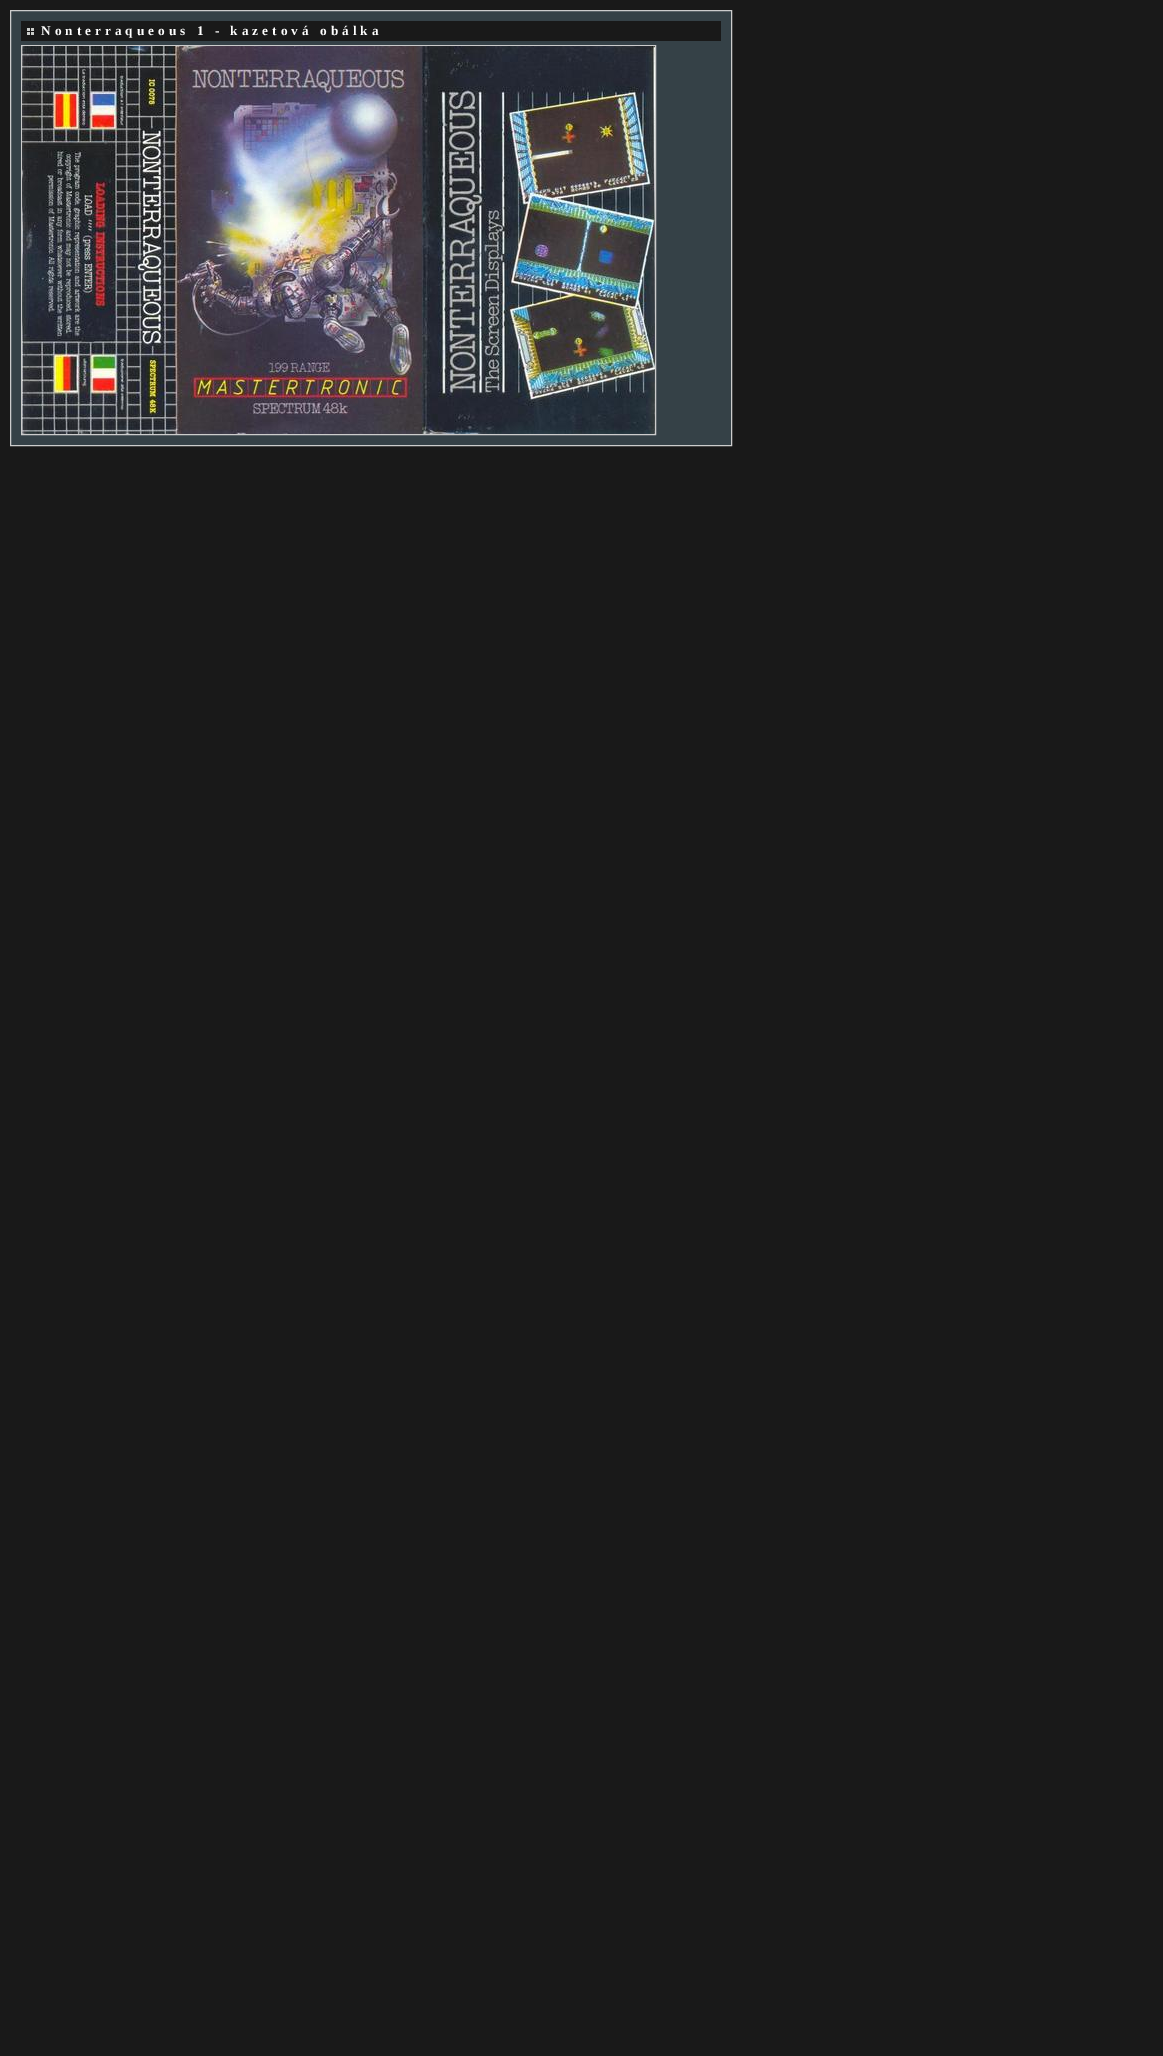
%!PS-Adobe-3.0
%%BoundingBox: 0 0 1163 2056
%%LanguageLevel: 3
%%Pages: 1
%%EndComments
%%BeginProlog
/setink { 3 { 255 div 3 1 roll } repeat setrgbcolor } def
/usefont { [ exch dup neg 0 0 3 -1 roll 0 0 ] selectfont } def
/fillbox { setink rectfill } def
/drawimage { 5 dict begin { /h /w /y /x /name } { exch def } forall
  gsave x y translate w h scale
  w h 8 [w 0 0 h 0 0] name (r) file false 3 colorimage grestore end } def
%%EndProlog
%%BeginSetup
<< /PageSize [1163 2056] >> setpagedevice
%%EndSetup
%%Page: 1 1
0 2056 translate 1 -1 scale
4 setmiterlimit
0 0 1163 2056 25 25 25 fillbox
53 65 71 setink
10.5 10.5 moveto 731.5 10.5 lineto 731.5 445.5 lineto 10.5 445.5 lineto closepath gsave fill grestore
204 204 204 setink
stroke
21 21 700 20 25 25 25 fillbox
(assets/img1.rgb) 27 28 7 7 drawimage
/LiberationSerif-Bold 13.3 usefont
255 255 255 setink
41 35 moveto 4 0 (Nonterraqueous 1 - kazetová obálka) ashow
204 204 204 setink
21.5 45.5 634 389 rectstroke
(assets/img2.rgb) 22 46 633 388 drawimage
showpage
%%EOF
